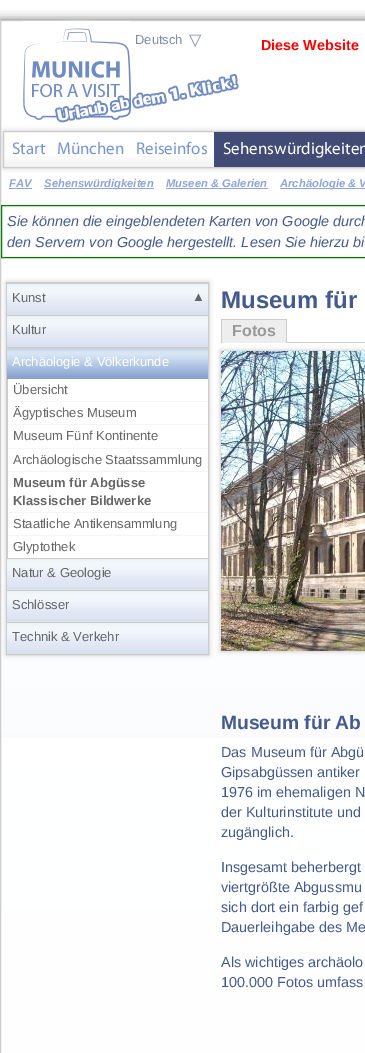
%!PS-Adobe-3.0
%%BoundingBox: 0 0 365 1053
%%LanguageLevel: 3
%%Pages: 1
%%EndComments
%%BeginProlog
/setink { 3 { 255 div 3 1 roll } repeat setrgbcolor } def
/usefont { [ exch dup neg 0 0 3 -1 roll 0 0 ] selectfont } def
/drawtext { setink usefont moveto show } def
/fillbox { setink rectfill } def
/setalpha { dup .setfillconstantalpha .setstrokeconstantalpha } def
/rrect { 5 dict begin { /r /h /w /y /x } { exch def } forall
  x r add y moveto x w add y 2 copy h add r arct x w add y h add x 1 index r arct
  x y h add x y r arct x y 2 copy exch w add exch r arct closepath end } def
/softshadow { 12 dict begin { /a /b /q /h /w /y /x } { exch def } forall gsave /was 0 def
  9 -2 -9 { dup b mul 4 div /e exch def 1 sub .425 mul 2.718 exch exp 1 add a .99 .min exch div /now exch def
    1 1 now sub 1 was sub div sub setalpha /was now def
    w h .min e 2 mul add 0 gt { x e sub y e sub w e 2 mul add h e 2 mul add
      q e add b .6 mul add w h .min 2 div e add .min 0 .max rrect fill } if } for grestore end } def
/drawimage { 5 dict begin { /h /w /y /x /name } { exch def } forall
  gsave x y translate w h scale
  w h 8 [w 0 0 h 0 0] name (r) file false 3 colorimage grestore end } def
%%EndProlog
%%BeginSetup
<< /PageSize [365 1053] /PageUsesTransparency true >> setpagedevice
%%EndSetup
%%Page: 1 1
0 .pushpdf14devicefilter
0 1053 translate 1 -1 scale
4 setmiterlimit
0 0 365 1053 255 255 255 fillbox
(assets/img7.rgb) 1 593 364 460 drawimage
gsave
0 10 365 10 rectclip
102 102 102 setink
0 20 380 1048 0 5 1 softshadow
grestore
0.9 setalpha
1 738 364 315 255 255 255 fillbox
1 setalpha
204 204 204 setink
0.5 20.5 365 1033 rectstroke
(assets/img1.rgb) 23 19 108 101 drawimage
(Deutsch) 135 44 /LiberationSans-Regular 13 124 140 175 drawtext
(▽) 189 45 /DejaVuSans-Regular 16 124 140 175 drawtext
(Diese Website) 261 50 /LiberationSans-Bold 14.4 255 0 0 drawtext
(assets/img2.rgb) 55 74 184 49 drawimage
gsave
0 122 moveto 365 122 lineto 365 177 lineto 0 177 lineto closepath 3 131 moveto 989 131 lineto 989 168 lineto 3 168 lineto closepath eoclip newpath
204 204 204 setink
3 131 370 37 0 2.5 1 softshadow
grestore
(assets/img3.rgb) 4 156 210 11 drawimage
204 204 204 setink
3.5 131.5 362 36 rectstroke
(Start) 12 154 /Myriad-Regular 17 119 149 210 drawtext
(München) 57 154 /Myriad-Regular 17 119 149 210 drawtext
(Reiseinfos) 136 154 /Myriad-Regular 17 119 149 210 drawtext
215 132 150 35 66 75 117 fillbox
214 132 1 35 51 82 145 fillbox
(Sehenswürdigkeiten) 223 154 /Myriad-Regular 17 255 255 255 drawtext
(FAV) 9 187 /LiberationSans-BoldItalic 11.25 142 165 216 drawtext
9 188 23 1 142 165 216 fillbox
44 188 110 1 142 165 216 fillbox
(Sehenswürdigkeiten) 44 187 /LiberationSans-BoldItalic 11.25 142 165 216 drawtext
(Museen & Galerien) 166 187 /LiberationSans-BoldItalic 11.25 142 165 216 drawtext
166 188 102 1 142 165 216 fillbox
280 188 85 1 142 165 216 fillbox
(Archäologie & V) 280 187 /LiberationSans-BoldItalic 11.25 142 165 216 drawtext
0 128 0 setink
1.5 205.5 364 52 rectstroke
(Sie können die eingeblendeten Karten von Google durch) 7 226 /LiberationSans-Italic 14.4 68 90 141 drawtext
(den Servern von Google hergestellt. Lesen Sie hierzu bi) 7 247 /LiberationSans-Italic 14.4 68 90 141 drawtext
204 204 204 setink
6 282 203 373 0 2.5 1 softshadow
6.5 282.5 202 372 rectstroke
8 379 200 179 255 255 255 fillbox
7 379 1 181 204 204 204 fillbox
(assets/img4.rgb) 7 284 201 31 drawimage
7 283 201 1 204 204 204 fillbox
(Kunst) 12 302 /LiberationSans-Regular 13 102 102 102 drawtext
(▲) 192 301 /LiberationSans-Regular 13 102 102 102 drawtext
(assets/img4.rgb) 7 316 201 31 drawimage
7 315 201 1 204 204 204 fillbox
(Kultur) 12 334 /LiberationSans-Regular 13 102 102 102 drawtext
(assets/img5.rgb) 7 348 201 31 drawimage
7 347 201 1 204 204 204 fillbox
(Archäologie & Völkerkunde) 12 366 /LiberationSans-Regular 13 255 255 255 drawtext
8 401 200 1 245 245 245 fillbox
(Übersicht) 13 394 /LiberationSans-Regular 13 102 102 102 drawtext
8 424 200 1 245 245 245 fillbox
(Ägyptisches Museum) 13 417 /LiberationSans-Regular 13 102 102 102 drawtext
8 448 200 1 245 245 245 fillbox
(Museum Fünf Kontinente) 13 440 /LiberationSans-Regular 13 102 102 102 drawtext
8 471 200 1 245 245 245 fillbox
(Archäologische Staatssammlung) 13 464 /LiberationSans-Regular 13 102 102 102 drawtext
8 512 200 1 245 245 245 fillbox
(Museum für Abgüsse) 13 487 /LiberationSans-Bold 13 102 102 102 drawtext
(Klassischer Bildwerke) 13 505 /LiberationSans-Bold 13 102 102 102 drawtext
8 535 200 1 245 245 245 fillbox
(Staatliche Antikensammlung) 13 528 /LiberationSans-Regular 13 102 102 102 drawtext
(Glyptothek) 13 551 /LiberationSans-Regular 13 102 102 102 drawtext
(assets/img4.rgb) 7 559 201 31 drawimage
7 558 201 1 204 204 204 fillbox
(Natur & Geologie) 12 577 /LiberationSans-Regular 13 102 102 102 drawtext
(assets/img4.rgb) 7 591 201 31 drawimage
7 590 201 1 204 204 204 fillbox
(Schlösser) 12 609 /LiberationSans-Regular 13 102 102 102 drawtext
(assets/img4.rgb) 7 623 201 31 drawimage
7 622 201 1 204 204 204 fillbox
(Technik & Verkehr) 12 641 /LiberationSans-Regular 13 102 102 102 drawtext
(Museum für) 221 308 /LiberationSans-Bold 24 68 90 141 drawtext
287 342 78 1 204 204 204 fillbox
187 187 187 setink
221 351 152 300 0 2.5 1 softshadow
222 320 64 23 238 238 238 fillbox
221 319 66 1 204 204 204 fillbox
286 319 1 24 204 204 204 fillbox
221 319 1 24 204 204 204 fillbox
(Fotos) 232 336 /LiberationSans-Bold 16 153 153 153 drawtext
(assets/img6.rgb) 221 351 144 300 drawimage
(Museum für Ab) 221 729 /LiberationSans-Bold 19.25 68 90 141 drawtext
(Das Museum für Abgü) 221 757 /LiberationSans-Regular 14.4 68 90 141 drawtext
(Gipsabgüssen antiker) 221 777 /LiberationSans-Regular 14.4 68 90 141 drawtext
(1976 im ehemaligen N) 221 797 /LiberationSans-Regular 14.4 68 90 141 drawtext
(der Kulturinstitute und) 221 817 /LiberationSans-Regular 14.4 68 90 141 drawtext
(zugänglich.) 221 837 /LiberationSans-Regular 14.4 68 90 141 drawtext
(Insgesamt beherbergt) 221 872 /LiberationSans-Regular 14.4 68 90 141 drawtext
(viertgrößte Abgussmu) 221 892 /LiberationSans-Regular 14.4 68 90 141 drawtext
(sich dort ein farbig gef) 221 912 /LiberationSans-Regular 14.4 68 90 141 drawtext
(Dauerleihgabe des Me) 221 932 /LiberationSans-Regular 14.4 68 90 141 drawtext
(Als wichtiges archäolo) 221 967 /LiberationSans-Regular 14.4 68 90 141 drawtext
(100.000 Fotos umfass) 221 987 /LiberationSans-Regular 14.4 68 90 141 drawtext
.poppdf14devicefilter showpage
%%EOF
